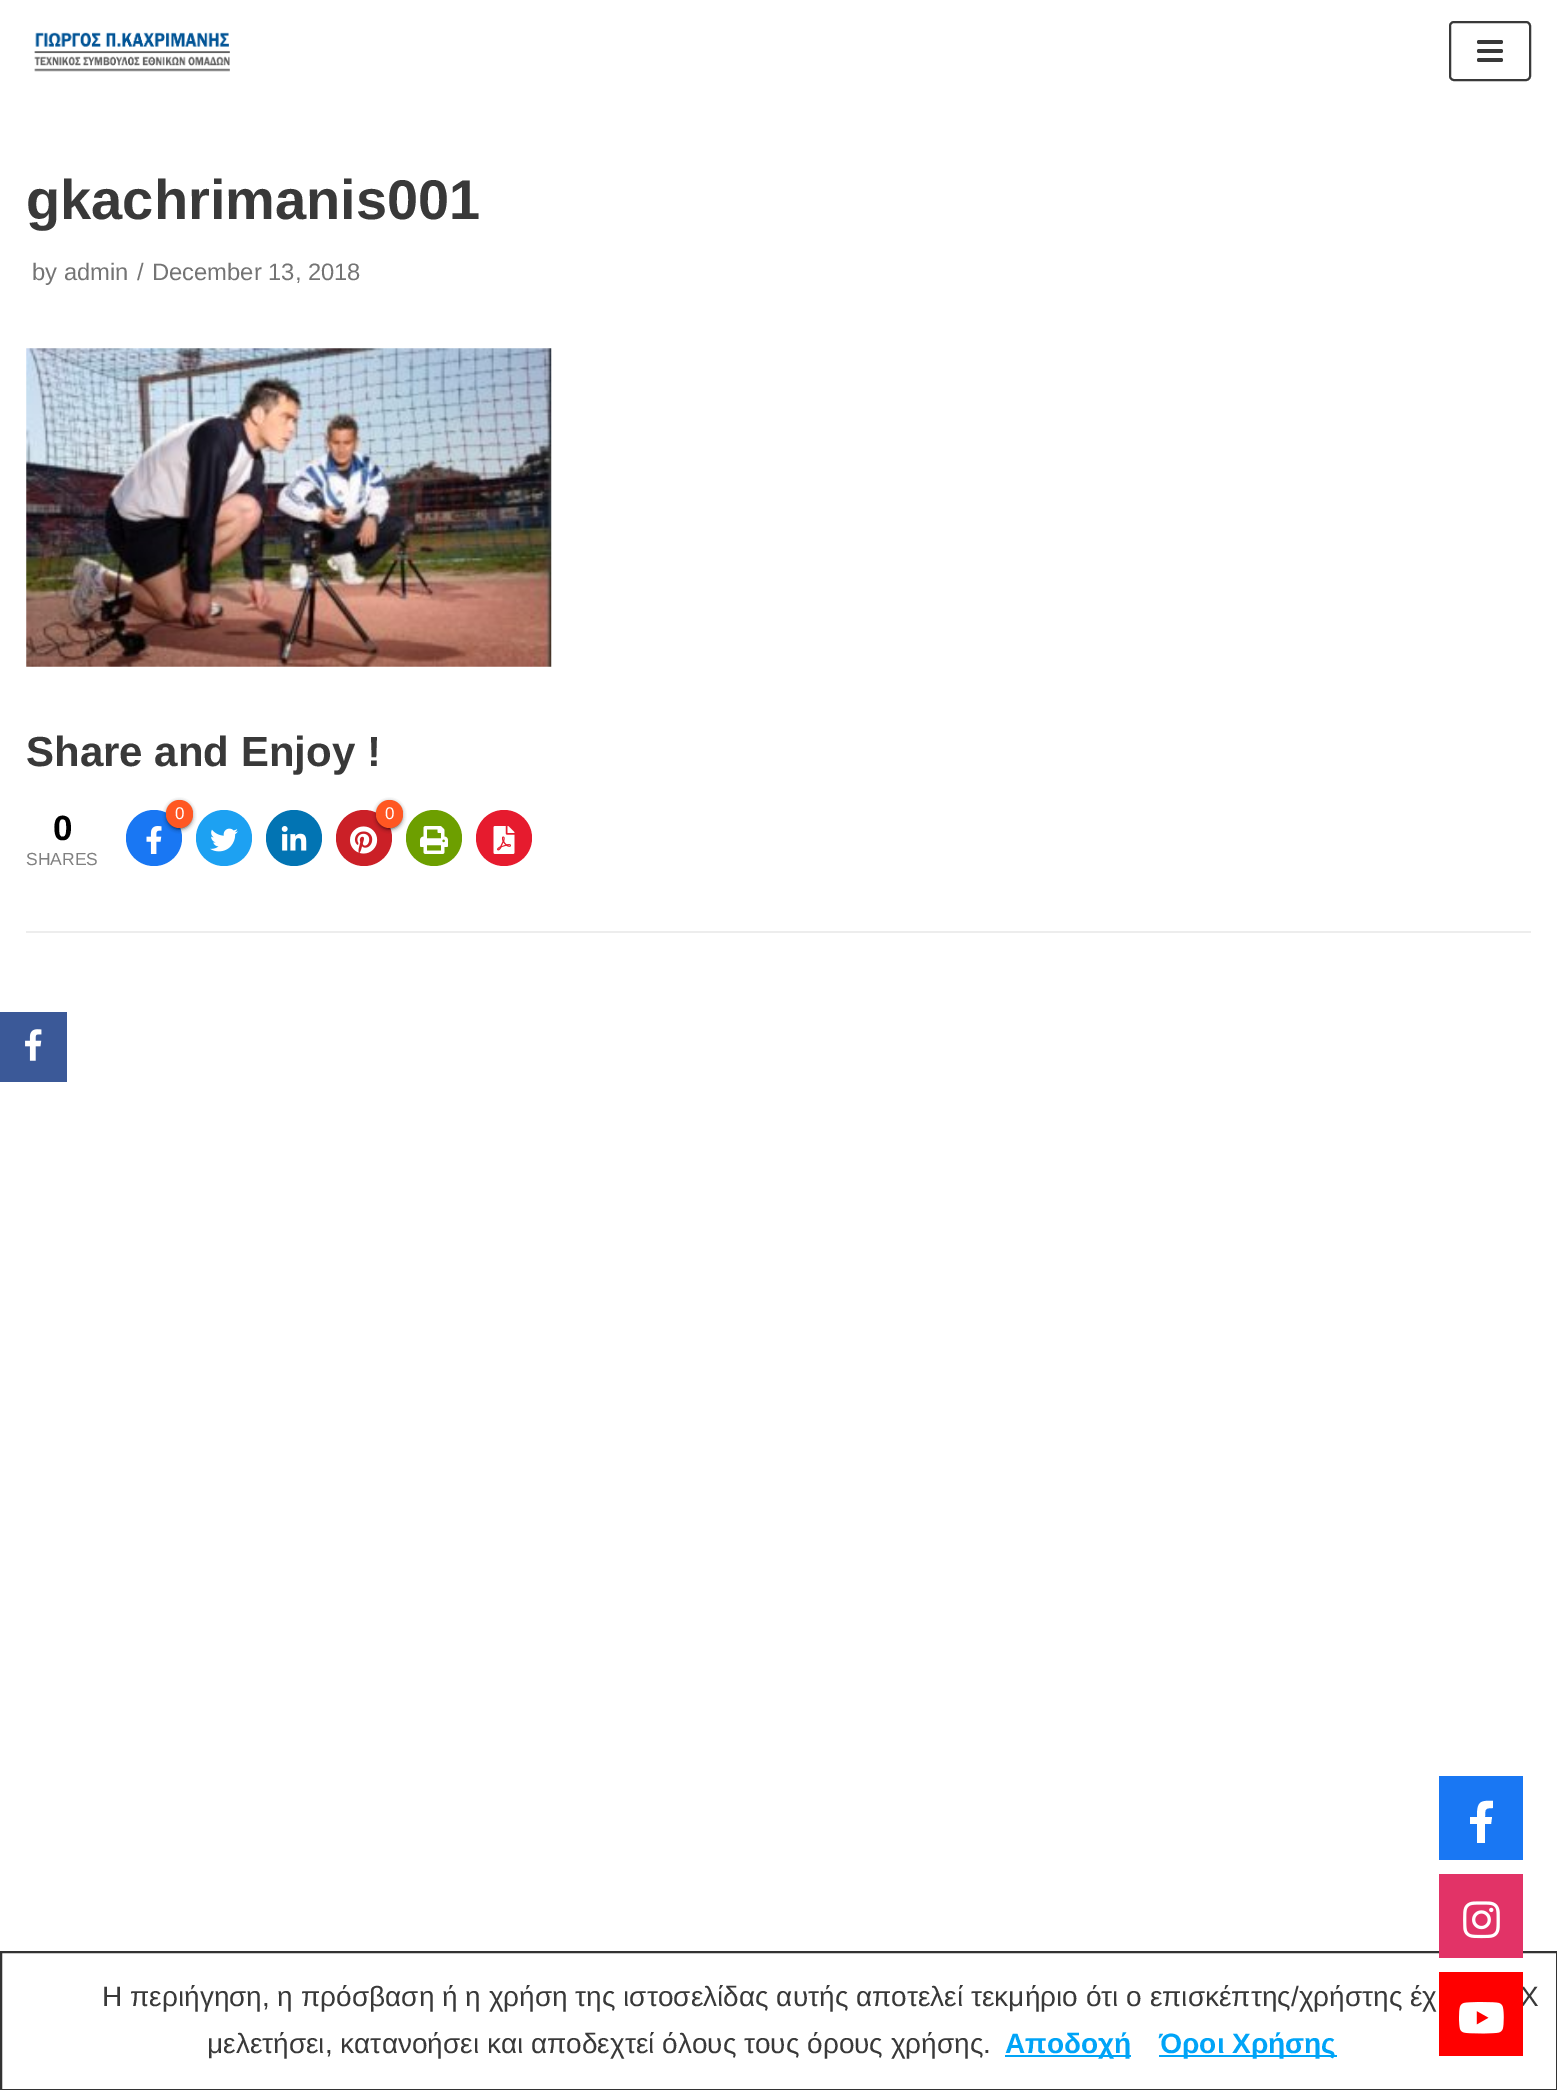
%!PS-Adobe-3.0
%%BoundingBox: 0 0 1557 2090
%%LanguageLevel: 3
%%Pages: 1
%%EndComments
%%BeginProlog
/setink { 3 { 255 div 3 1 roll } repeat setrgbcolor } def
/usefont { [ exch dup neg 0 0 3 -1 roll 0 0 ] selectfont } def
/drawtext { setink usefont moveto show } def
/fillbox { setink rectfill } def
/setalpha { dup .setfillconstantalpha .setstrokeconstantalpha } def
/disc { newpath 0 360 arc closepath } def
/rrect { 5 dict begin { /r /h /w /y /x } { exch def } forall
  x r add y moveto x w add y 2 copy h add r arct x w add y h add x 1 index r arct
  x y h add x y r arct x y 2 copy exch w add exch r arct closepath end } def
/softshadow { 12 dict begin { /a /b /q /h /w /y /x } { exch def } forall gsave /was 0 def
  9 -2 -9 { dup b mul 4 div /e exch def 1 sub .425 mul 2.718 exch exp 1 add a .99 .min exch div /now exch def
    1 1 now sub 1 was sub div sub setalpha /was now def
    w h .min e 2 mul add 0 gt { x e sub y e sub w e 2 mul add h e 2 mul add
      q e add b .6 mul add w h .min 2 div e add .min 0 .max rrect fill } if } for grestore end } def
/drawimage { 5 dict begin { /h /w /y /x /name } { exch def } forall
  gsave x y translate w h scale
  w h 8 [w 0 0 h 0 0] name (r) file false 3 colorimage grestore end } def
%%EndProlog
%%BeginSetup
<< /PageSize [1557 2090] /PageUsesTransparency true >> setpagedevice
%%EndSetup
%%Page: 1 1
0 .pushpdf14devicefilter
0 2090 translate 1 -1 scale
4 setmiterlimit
0 0 1557 2090 255 255 255 fillbox
(assets/img1.rgb) 34 32 196 40 drawimage
57 57 57 setink
2 setlinewidth
1450 22 80 58 4 rrect stroke
1477 40 26 4 2 rrect fill
1477 49 26 4 2 rrect fill
1477 58 26 4 2 rrect fill
(gkachrimanis001) 26 219 /LiberationSans-Bold 56 57 57 57 drawtext
(by admin) 32 280 /LiberationSans-Regular 23.75 116 116 116 drawtext
(/) 137 280 /LiberationSans-Regular 23.75 116 116 116 drawtext
(December 13, 2018) 152 280 /LiberationSans-Regular 23.75 116 116 116 drawtext
(assets/img2.rgb) 26 348 526 319 drawimage
(Share and Enjoy !) 26 766 /LiberationSans-Bold 42 57 57 57 drawtext
25 119 243 setink
154 838 28 disc fill
(assets/img3.rgb) 146 826 16 28 drawimage
29 161 242 setink
224 838 28 disc fill
0 0 0 setink
168 803 23 25 11.5 2.5 1 softshadow
255 87 34 setink
166 800 27 28 13.5 rrect fill
(0) 175 819 /LiberationSans-Regular 17 255 255 255 drawtext
(assets/img4.rgb) 210 828 28 24 drawimage
2 116 179 setink
294 838 28 disc fill
(assets/img5.rgb) 281 826 26 25 drawimage
203 32 39 setink
364 838 28 disc fill
(assets/img6.rgb) 350 826 28 28 drawimage
109 159 0 setink
434 838 28 disc fill
0 0 0 setink
378 803 23 25 11.5 2.5 1 softshadow
255 87 34 setink
376 800 27 28 13.5 rrect fill
(0) 385 819 /LiberationSans-Regular 17 255 255 255 drawtext
(assets/img7.rgb) 420 826 28 28 drawimage
230 27 46 setink
504 838 28 disc fill
(assets/img8.rgb) 493 826 22 28 drawimage
(0) 53 840 /LiberationSans-Bold 35 0 0 0 drawtext
(SHARES) 26 865 /LiberationSans-Regular 17.5 128 128 128 drawtext
26 931 1505 2 237 237 237 fillbox
0 1012 67 70 59 89 152 fillbox
(assets/img9.rgb) 25 1029 17 32 drawimage
1439 1776 84 84 25 119 243 fillbox
255 255 255 setink
1491 1824 moveto 1485 1824 lineto 1485 1843 lineto 1477 1843 lineto 1477 1824 lineto 1470 1824 lineto 1470 1817 lineto 1477 1817 lineto 1477 1803 1479 1800 1493 1801 curveto 1493 1808 lineto 1485 1808 1485 1809 1485 1817 curveto 1492 1817 lineto closepath fill
51 51 51 setink
1 1952 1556 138 rectstroke
1439 1874 84 84 226 51 103 fillbox
(assets/img10.rgb) 1463 1901 37 38 drawimage
(X) 1520 2006 /LiberationSans-Regular 28 57 57 57 drawtext
1439 1972 84 84 255 0 0 fillbox
(assets/img11.rgb) 1459 2002 45 32 drawimage
(Η περιήγηση, η πρόσβαση ή η χρήση της ιστοσελίδας αυτής αποτελεί τεκμήριο ότι ο επισκέπτης/χρήστης έχ) 102 2006 /LiberationSans-Regular 28 57 57 57 drawtext
(μελετήσει, κατανοήσει και αποδεχτεί όλους τους όρους χρήσης.) 207 2053 /LiberationSans-Regular 28 57 57 57 drawtext
1005 2055 126 2 0 164 247 fillbox
(Αποδοχή) 1005 2053 /LiberationSans-Bold 28 0 164 247 drawtext
1159 2055 178 2 0 164 247 fillbox
(Όροι Χρήσης) 1159 2053 /LiberationSans-Bold 28 0 164 247 drawtext
.poppdf14devicefilter showpage
%%EOF
